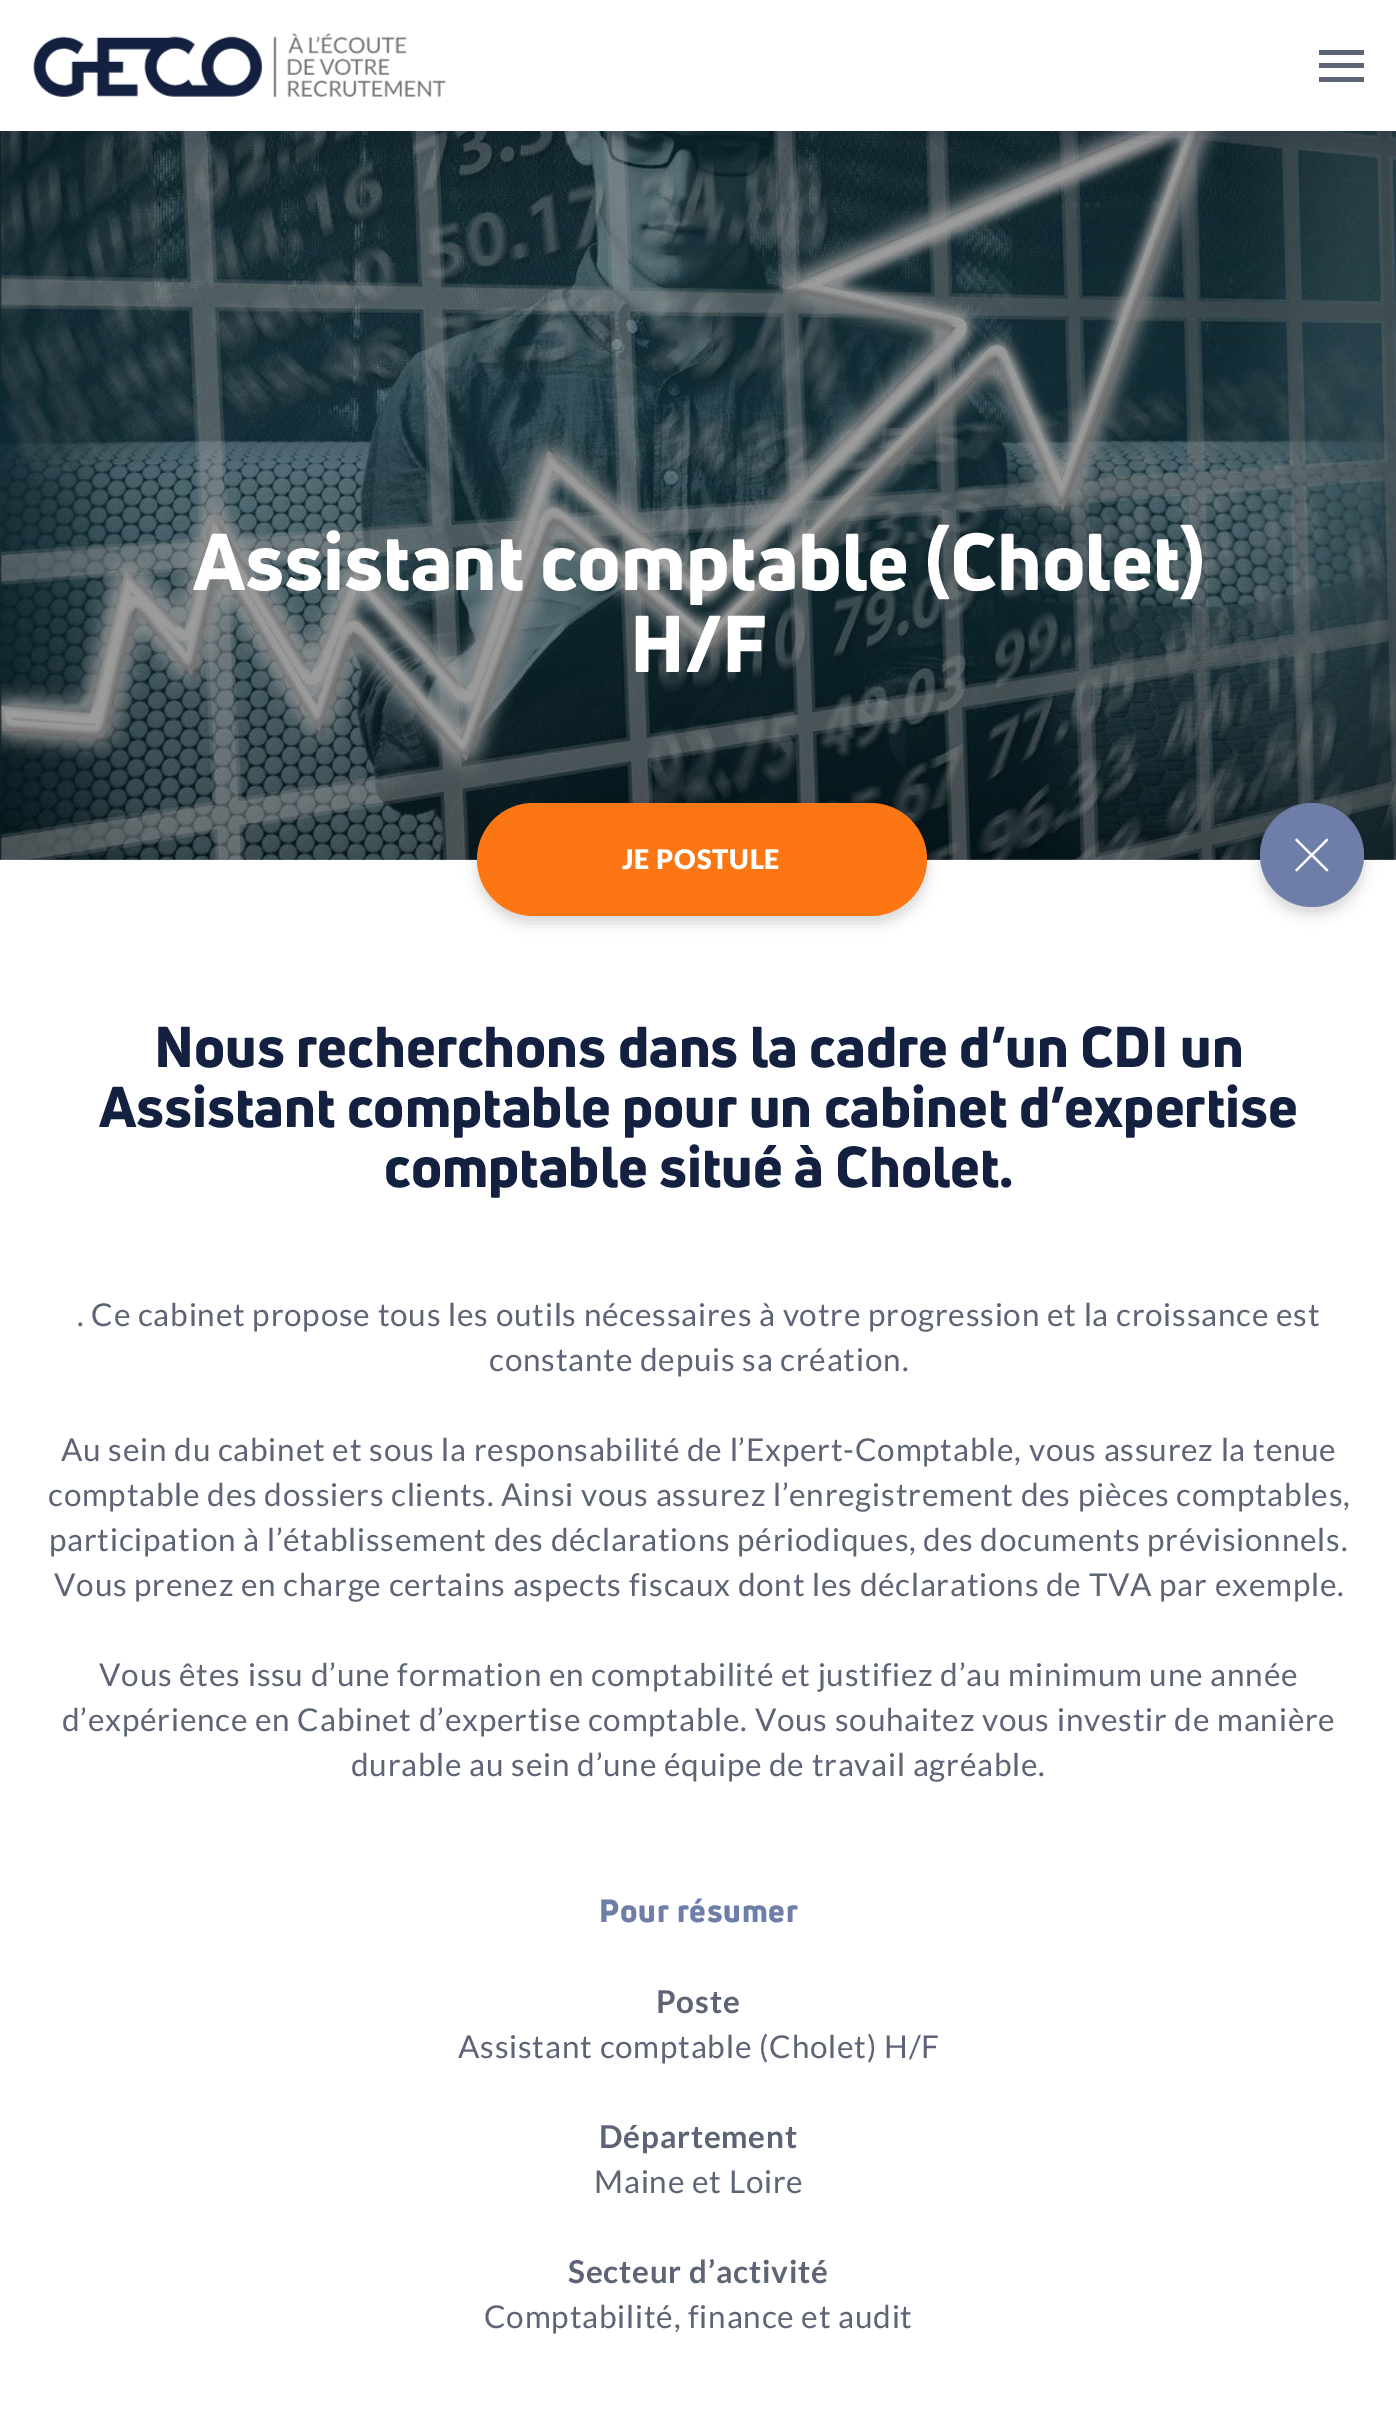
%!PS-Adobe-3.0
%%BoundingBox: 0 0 1396 2421
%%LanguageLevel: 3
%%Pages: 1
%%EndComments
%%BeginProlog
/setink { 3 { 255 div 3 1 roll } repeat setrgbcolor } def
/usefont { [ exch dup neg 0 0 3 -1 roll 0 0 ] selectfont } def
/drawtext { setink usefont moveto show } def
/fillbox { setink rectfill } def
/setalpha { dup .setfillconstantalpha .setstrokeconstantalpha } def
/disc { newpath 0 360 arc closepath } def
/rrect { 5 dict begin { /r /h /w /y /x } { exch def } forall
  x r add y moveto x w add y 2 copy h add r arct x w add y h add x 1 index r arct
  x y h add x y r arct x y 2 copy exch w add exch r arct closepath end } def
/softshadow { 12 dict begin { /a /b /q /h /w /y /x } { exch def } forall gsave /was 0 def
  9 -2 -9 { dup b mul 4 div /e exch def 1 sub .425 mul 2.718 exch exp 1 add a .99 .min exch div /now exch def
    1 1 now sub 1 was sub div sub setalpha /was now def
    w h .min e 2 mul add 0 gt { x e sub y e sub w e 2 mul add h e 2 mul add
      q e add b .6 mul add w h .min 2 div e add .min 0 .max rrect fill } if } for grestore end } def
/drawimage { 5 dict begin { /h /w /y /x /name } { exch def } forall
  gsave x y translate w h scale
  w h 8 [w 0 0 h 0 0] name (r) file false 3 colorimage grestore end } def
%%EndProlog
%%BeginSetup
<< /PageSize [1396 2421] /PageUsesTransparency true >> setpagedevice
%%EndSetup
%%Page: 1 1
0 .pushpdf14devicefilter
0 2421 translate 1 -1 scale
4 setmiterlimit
0 0 1396 2421 255 255 255 fillbox
(assets/img2.rgb) 0 131 1396 729 drawimage
19 32 64 setink
0 2 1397 131 0 11 0.3 softshadow
0 0 1396 131 255 255 255 fillbox
(assets/img1.rgb) 33 33 413 64 drawimage
1319 50 45 5 93 100 118 fillbox
1319 63 45 5 93 100 118 fillbox
1319 77 45 5 93 100 118 fillbox
(Assistant comptable \(Cholet\)) 193 590 /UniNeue-Black 78.75 255 255 255 drawtext
(H/F) 630 672 /UniNeue-Black 78.75 255 255 255 drawtext
0 0 0 setink
477 810 450 113 56.5 7 0.16 softshadow
252 118 19 setink
477 803 450 113 56.5 rrect fill
/Lato-Black 27 usefont
255 255 255 setink
622 869 moveto 0.8 0 (JE POSTULE) ashow
0 0 0 setink
1260 810 104 104 52 7 0.16 softshadow
110 126 168 setink
1312 855 52 disc fill
255 255 255 setink
1296.5 838.5 moveto 1328.5 870 lineto 1327 871.5 lineto 1295 840 lineto closepath fill
1295 870 moveto 1327 838.5 lineto 1328.5 840 lineto 1296.5 871.5 lineto closepath fill
(Nous recherchons dans la cadre d’un CDI un) 154 1067 /UniNeue-Black 56.25 19 32 64 drawtext
(Assistant comptable pour un cabinet d’expertise) 99 1127 /UniNeue-Black 56.25 19 32 64 drawtext
(comptable situé à Cholet.) 384 1187 /UniNeue-Black 56.25 19 32 64 drawtext
/Lato-Regular 31.5 usefont
93 100 118 setink
77 1326 moveto 0.8 0 (. Ce cabinet propose tous les outils nécessaires à votre progression et la croissance est) ashow
489 1371 moveto 0.8 0 (constante depuis sa création.) ashow
61 1461 moveto 0.8 0 (Au sein du cabinet et sous la responsabilité de l’Expert-Comptable, vous assurez la tenue) ashow
48 1506 moveto 0.8 0 (comptable des dossiers clients. Ainsi vous assurez l’enregistrement des pièces comptables,) ashow
49 1551 moveto 0.8 0 (participation à l’établissement des déclarations périodiques, des documents prévisionnels.) ashow
54 1596 moveto 0.8 0 (Vous prenez en charge certains aspects fiscaux dont les déclarations de TVA par exemple.) ashow
99 1686 moveto 0.8 0 (Vous êtes issu d’une formation en comptabilité et justifiez d’au minimum une année) ashow
62 1731 moveto 0.8 0 (d’expérience en Cabinet d’expertise comptable. Vous souhaitez vous investir de manière) ashow
351 1776 moveto 0.8 0 (durable au sein d’une équipe de travail agréable.) ashow
/UniNeue-Black 31.5 usefont
110 126 168 setink
599 1922 moveto 0.8 0 (Pour résumer) ashow
/Lato-Bold 31.5 usefont
93 100 118 setink
656 2013 moveto 0.8 0 (Poste) ashow
/Lato-Regular 31.5 usefont
458 2058 moveto 0.8 0 (Assistant comptable \(Cholet\) H/F) ashow
/Lato-Bold 31.5 usefont
599 2148 moveto 0.8 0 (Département) ashow
/Lato-Regular 31.5 usefont
594 2193 moveto 0.8 0 (Maine et Loire) ashow
/Lato-Bold 31.5 usefont
568 2283 moveto 0.8 0 (Secteur d’activité) ashow
/Lato-Regular 31.5 usefont
484 2328 moveto 0.8 0 (Comptabilité, finance et audit) ashow
.poppdf14devicefilter showpage
%%EOF
